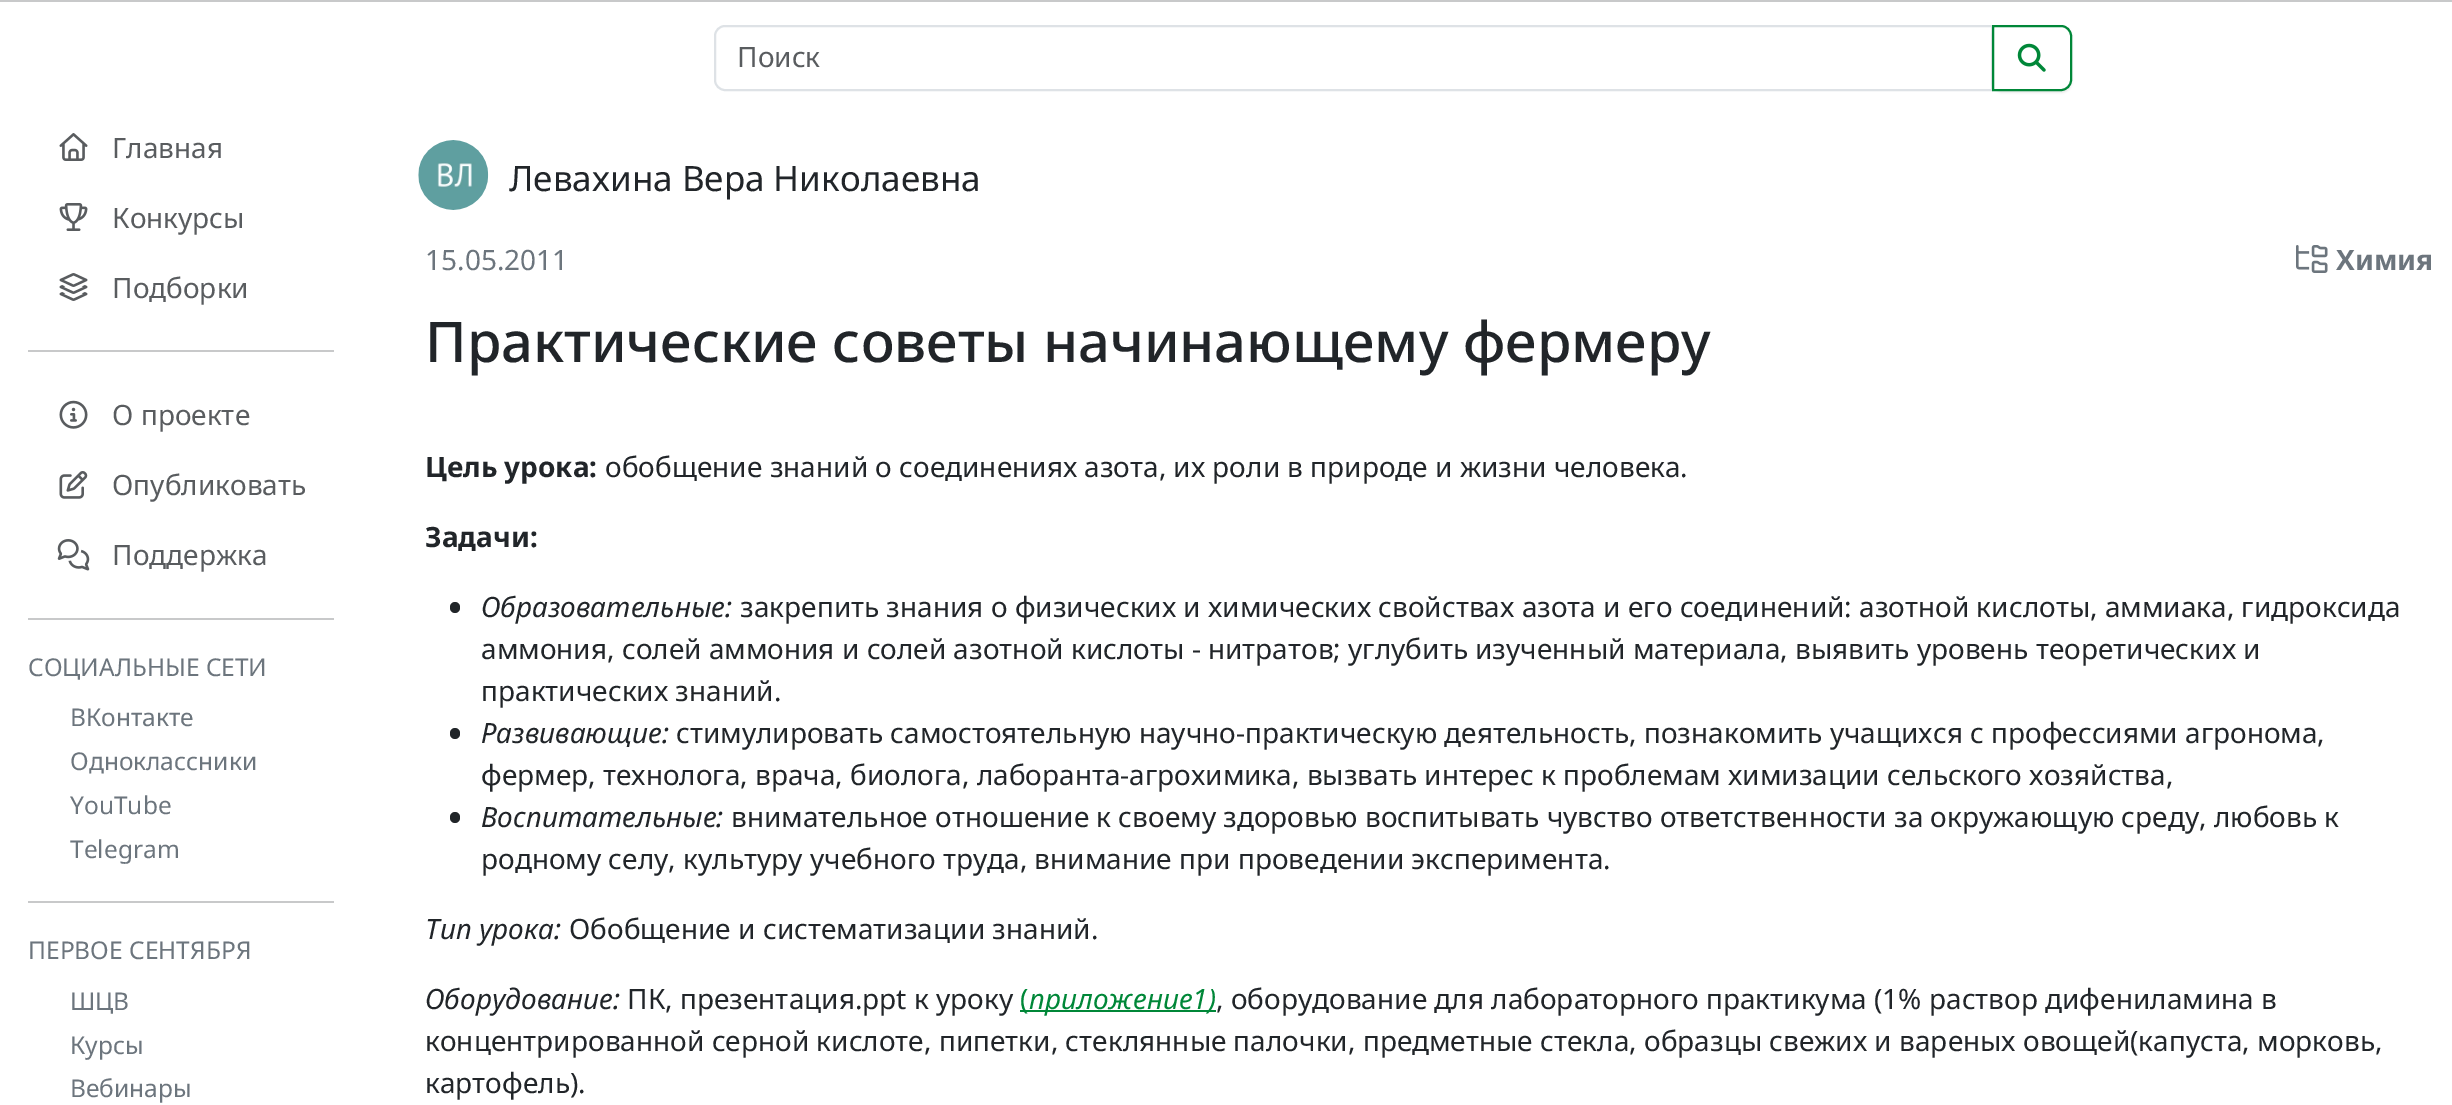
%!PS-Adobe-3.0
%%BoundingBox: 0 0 2452 1105
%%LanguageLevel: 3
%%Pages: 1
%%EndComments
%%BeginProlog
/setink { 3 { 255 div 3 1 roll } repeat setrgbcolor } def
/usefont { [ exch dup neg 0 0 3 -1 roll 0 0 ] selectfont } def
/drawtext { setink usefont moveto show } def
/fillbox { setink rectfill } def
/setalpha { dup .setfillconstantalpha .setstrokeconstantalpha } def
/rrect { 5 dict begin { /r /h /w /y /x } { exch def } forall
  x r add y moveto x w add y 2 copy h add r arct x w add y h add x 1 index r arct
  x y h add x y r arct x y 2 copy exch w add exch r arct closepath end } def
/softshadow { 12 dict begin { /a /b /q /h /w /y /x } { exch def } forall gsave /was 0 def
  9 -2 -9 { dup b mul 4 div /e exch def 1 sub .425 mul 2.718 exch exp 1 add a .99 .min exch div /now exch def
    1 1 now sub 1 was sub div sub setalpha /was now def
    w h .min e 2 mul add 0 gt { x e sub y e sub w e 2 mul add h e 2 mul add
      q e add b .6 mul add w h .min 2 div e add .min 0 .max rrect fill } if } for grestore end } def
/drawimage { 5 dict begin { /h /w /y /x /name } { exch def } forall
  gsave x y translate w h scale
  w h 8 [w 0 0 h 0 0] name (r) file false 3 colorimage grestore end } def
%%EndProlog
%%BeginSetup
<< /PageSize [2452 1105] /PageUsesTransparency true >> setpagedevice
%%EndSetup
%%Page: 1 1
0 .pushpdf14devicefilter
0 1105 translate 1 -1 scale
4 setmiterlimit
0 0 2452 1105 255 255 255 fillbox
0 0 2452 2 200 201 202 fillbox
222 226 230 setink
2 setlinewidth
725 26 moveto 1992 26 lineto 1992 90 lineto 725 90 lineto 719.5 90 715 85.5 715 80 curveto 715 36 lineto 715 30.5 719.5 26 725 26 curveto closepath stroke
(Поиск) 737 67 /NotoSans-Regular 28 89 92 95 drawtext
gsave
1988 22 moveto 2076 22 lineto 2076 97 lineto 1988 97 lineto closepath 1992 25 moveto 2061 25 lineto 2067 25 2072 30 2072 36 curveto 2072 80 lineto 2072 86 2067 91 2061 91 curveto 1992 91 lineto closepath eoclip newpath
0 0 0 setink
1992 26 80 67 11 1 0.07 softshadow
grestore
0 135 56 setink
1993 26 moveto 2061 26 lineto 2066.5 26 2071 30.5 2071 36 curveto 2071 80 lineto 2071 85.5 2066.5 90 2061 90 curveto 1993 90 lineto closepath stroke
(assets/img1.rgb) 2017 43 29 29 drawimage
(assets/img2.rgb) 59 133 29 28 drawimage
(Главная) 112 158 /NotoSans-Regular 28 89 92 95 drawtext
(assets/img3.rgb) 59 203 29 28 drawimage
(Конкурсы) 112 228 /NotoSans-Regular 28 89 92 95 drawtext
(assets/img4.rgb) 59 273 29 28 drawimage
(Подборки) 112 298 /NotoSans-Regular 28 89 92 95 drawtext
28 350 306 2 200 201 202 fillbox
(assets/img5.rgb) 59 400 29 29 drawimage
(О проекте) 112 425 /NotoSans-Regular 28 89 92 95 drawtext
(assets/img6.rgb) 59 471 29 28 drawimage
(Опубликовать) 112 495 /NotoSans-Regular 28 89 92 95 drawtext
(assets/img7.rgb) 57 539 33 32 drawimage
(Поддержка) 112 565 /NotoSans-Regular 28 89 92 95 drawtext
28 618 306 2 200 201 202 fillbox
(СОЦИАЛЬНЫЕ СЕТИ) 28 676 /NotoSans-Regular 24.5 108 117 125 drawtext
(ВКонтакте) 70 726 /NotoSans-Regular 24.5 108 117 125 drawtext
(Одноклассники) 70 770 /NotoSans-Regular 24.5 108 117 125 drawtext
(YouTube) 70 814 /NotoSans-Regular 24.5 108 117 125 drawtext
(Telegram) 70 858 /NotoSans-Regular 24.5 108 117 125 drawtext
28 901 306 2 200 201 202 fillbox
(ПЕРВОЕ СЕНТЯБРЯ) 28 959 /NotoSans-Regular 24.5 108 117 125 drawtext
(ШЦВ) 70 1010 /NotoSans-Regular 24.5 108 117 125 drawtext
(Курсы) 70 1054 /NotoSans-Regular 24.5 108 117 125 drawtext
(Вебинары) 70 1097 /NotoSans-Regular 24.5 108 117 125 drawtext
(assets/img8.rgb) 418 140 71 70 drawimage
(Левахина Вера Николаевна) 509 191 /NotoSans-Regular 35 33 37 41 drawtext
(15.05.2011) 425 270 /NotoSans-Regular 28 108 117 125 drawtext
(assets/img9.rgb) 2296 245 32 28 drawimage
(Химия) 2336 270 /NotoSans-Bold 28 108 117 125 drawtext
(Практические советы начинающему фермеру) 425 362 /NotoSans-Medium 56 33 37 41 drawtext
(Цель урока:) 425 477 /NotoSans-Bold 28 33 37 41 drawtext
(обобщение знаний о соединениях азота, их роли в природе и жизни человека.) 605 477 /NotoSans-Regular 28 33 37 41 drawtext
(Задачи:) 425 547 /NotoSans-Bold 28 33 37 41 drawtext
450 602 10 11 5 rrect fill
(Образовательные:) 481 617 /NotoSans-Italic 28 33 37 41 drawtext
(закрепить знания о физических и химических свойствах азота и его соединений: азотной кислоты, аммиака, гидроксида) 740 617 /NotoSans-Regular 28 33 37 41 drawtext
(аммония, солей аммония и солей азотной кислоты - нитратов; углубить изученный материала, выявить уровень теоретических и) 481 659 /NotoSans-Regular 28 33 37 41 drawtext
(практических знаний.) 481 701 /NotoSans-Regular 28 33 37 41 drawtext
450 728 10 11 5 rrect fill
(Развивающие:) 481 743 /NotoSans-Italic 28 33 37 41 drawtext
(стимулировать самостоятельную научно-практическую деятельность, познакомить учащихся с профессиями агронома,) 676 743 /NotoSans-Regular 28 33 37 41 drawtext
(фермер, технолога, врача, биолога, лаборанта-агрохимика, вызвать интерес к проблемам химизации сельского хозяйства,) 481 785 /NotoSans-Regular 28 33 37 41 drawtext
450 812 10 11 5 rrect fill
(Воспитательные:) 481 827 /NotoSans-Italic 28 33 37 41 drawtext
(внимательное отношение к своему здоровью воспитывать чувство ответственности за окружающую среду, любовь к) 731 827 /NotoSans-Regular 28 33 37 41 drawtext
(родному селу, культуру учебного труда, внимание при проведении эксперимента.) 481 869 /NotoSans-Regular 28 33 37 41 drawtext
(Тип урока:) 425 939 /NotoSans-Italic 28 33 37 41 drawtext
(Обобщение и систематизации знаний.) 569 939 /NotoSans-Regular 28 33 37 41 drawtext
(Оборудование:) 425 1009 /NotoSans-Italic 28 33 37 41 drawtext
(ПК, презентация.ррt к уроку) 627 1009 /NotoSans-Regular 28 33 37 41 drawtext
1020 1010 196 2 0 135 56 fillbox
(\() 1020 1009 /NotoSans-Regular 28 0 135 56 drawtext
(приложение1\)) 1029 1009 /NotoSans-Italic 28 0 135 56 drawtext
(, оборудование для лабораторного практикума \(1% раствор дифениламина в) 1216 1009 /NotoSans-Regular 28 33 37 41 drawtext
(концентрированной серной кислоте, пипетки, стеклянные палочки, предметные стекла, образцы свежих и вареных овощей\(капуста, морковь,) 425 1051 /NotoSans-Regular 28 33 37 41 drawtext
(картофель\).) 425 1093 /NotoSans-Regular 28 33 37 41 drawtext
.poppdf14devicefilter showpage
%%EOF
